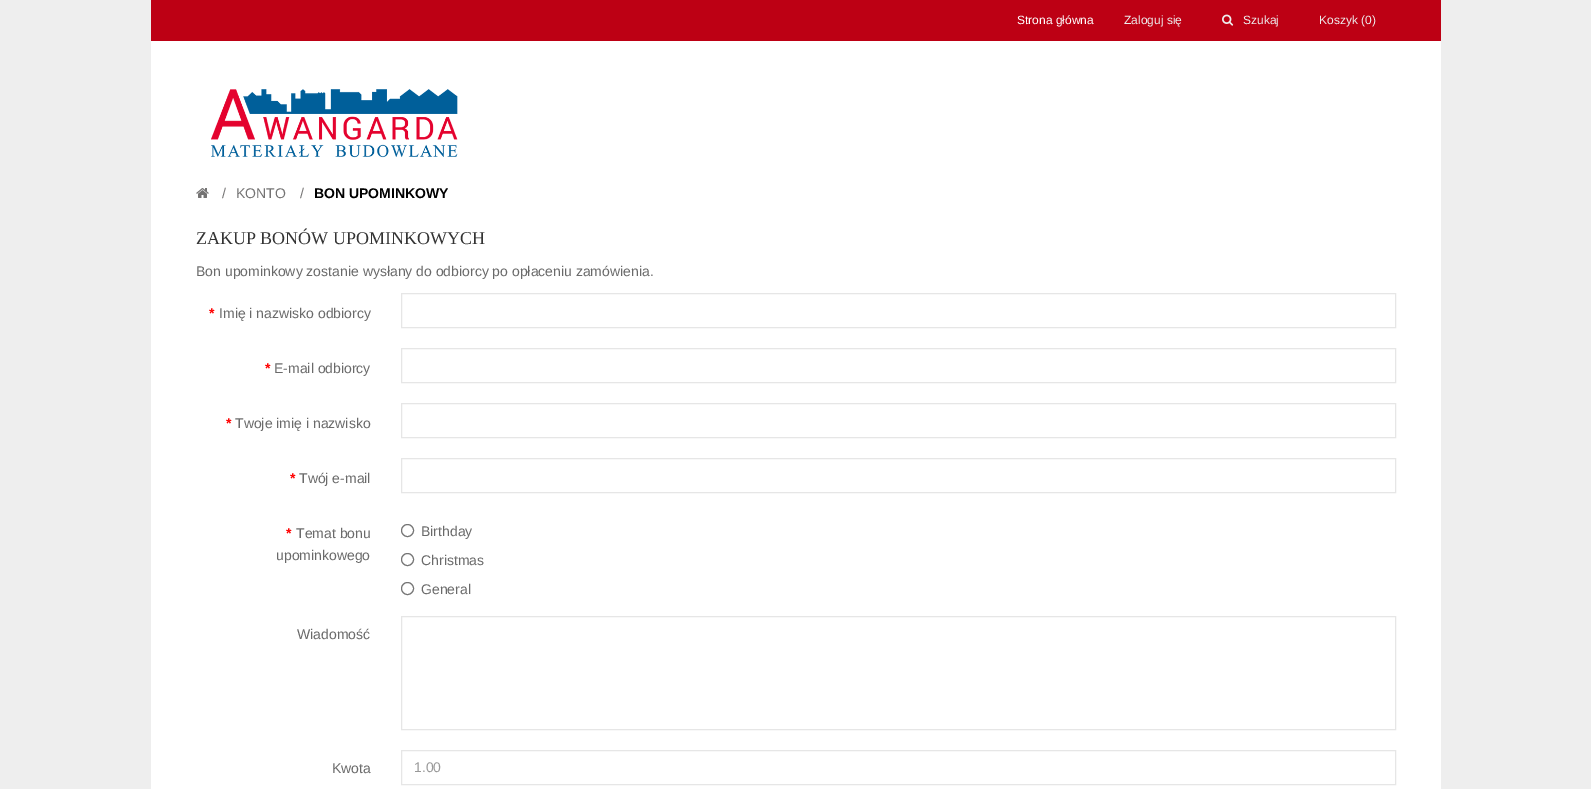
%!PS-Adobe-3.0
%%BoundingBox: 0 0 1591 789
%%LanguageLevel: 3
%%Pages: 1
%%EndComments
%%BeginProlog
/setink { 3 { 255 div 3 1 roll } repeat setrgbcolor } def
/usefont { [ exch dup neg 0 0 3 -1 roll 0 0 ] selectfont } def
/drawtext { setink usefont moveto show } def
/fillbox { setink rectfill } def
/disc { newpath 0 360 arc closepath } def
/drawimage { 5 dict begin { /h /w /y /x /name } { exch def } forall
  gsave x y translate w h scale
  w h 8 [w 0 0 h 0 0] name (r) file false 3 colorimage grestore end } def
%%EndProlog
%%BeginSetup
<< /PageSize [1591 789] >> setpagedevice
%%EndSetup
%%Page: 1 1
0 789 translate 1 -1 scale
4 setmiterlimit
0 0 1591 789 238 238 238 fillbox
151 41 1290 748 255 255 255 fillbox
151 0 1290 41 189 0 20 fillbox
(Strona główna) 1017 24 /LiberationSans-Regular 12 255 255 255 drawtext
(Zaloguj się) 1124 24 /LiberationSans-Regular 12 238 238 238 drawtext
(assets/img1.rgb) 1222 14 12 12 drawimage
(Szukaj) 1243 24 /LiberationSans-Regular 12 238 238 238 drawtext
(Koszyk \(0\)) 1319 24 /LiberationSans-Regular 12 238 238 238 drawtext
(assets/img2.rgb) 211 89 247 69 drawimage
(assets/img3.rgb) 196 188 13 10 drawimage
(/) 222 198 /LiberationSans-Regular 14 116 115 115 drawtext
(KONTO) 236 198 /LiberationSans-Regular 14 116 115 115 drawtext
(/) 300 198 /LiberationSans-Regular 14 116 115 115 drawtext
(BON UPOMINKOWY) 314 198 /LiberationSans-Bold 14 0 0 0 drawtext
(ZAKUP BONÓW UPOMINKOWYCH) 196 244 /LiberationSerif-Regular 18 51 51 51 drawtext
(Bon upominkowy zostanie wysłany do odbiorcy po opłaceniu zamówienia.) 196 276 /LiberationSans-Regular 14 106 106 106 drawtext
(*) 209 318 /LiberationSans-Bold 14 255 0 0 drawtext
(Imię i nazwisko odbiorcy) 219 318 /LiberationSans-Regular 14 106 106 106 drawtext
230 230 230 setink
401.5 293.5 994 34 rectstroke
(*) 265 373 /LiberationSans-Bold 14 255 0 0 drawtext
(E-mail odbiorcy) 274 373 /LiberationSans-Regular 14 106 106 106 drawtext
230 230 230 setink
401.5 348.5 994 34 rectstroke
(*) 226 428 /LiberationSans-Bold 14 255 0 0 drawtext
(Twoje imię i nazwisko) 235 428 /LiberationSans-Regular 14 106 106 106 drawtext
230 230 230 setink
401.5 403.5 994 34 rectstroke
(*) 290 483 /LiberationSans-Bold 14 255 0 0 drawtext
(Twój e-mail) 299 483 /LiberationSans-Regular 14 106 106 106 drawtext
230 230 230 setink
401.5 458.5 994 34 rectstroke
(*) 286 538 /LiberationSans-Bold 14 255 0 0 drawtext
(Temat bonu) 296 538 /LiberationSans-Regular 14 106 106 106 drawtext
(upominkowego) 276 560 /LiberationSans-Regular 14 106 106 106 drawtext
118 118 118 setink
407.5 530.5 6 disc stroke
(Birthday) 421 536 /LiberationSans-Regular 14 106 106 106 drawtext
118 118 118 setink
407.5 559.5 6 disc stroke
(Christmas) 421 565 /LiberationSans-Regular 14 106 106 106 drawtext
118 118 118 setink
407.5 588.5 6 disc stroke
(General) 421 594 /LiberationSans-Regular 14 106 106 106 drawtext
(Wiadomość) 297 639 /LiberationSans-Regular 14 106 106 106 drawtext
230 230 230 setink
401.5 616.5 994 113 rectstroke
(Kwota) 332 773 /LiberationSans-Regular 14 106 106 106 drawtext
230 230 230 setink
401.5 750.5 994 34 rectstroke
(1.00) 414 772 /LiberationSans-Regular 14 153 153 153 drawtext
showpage
%%EOF
